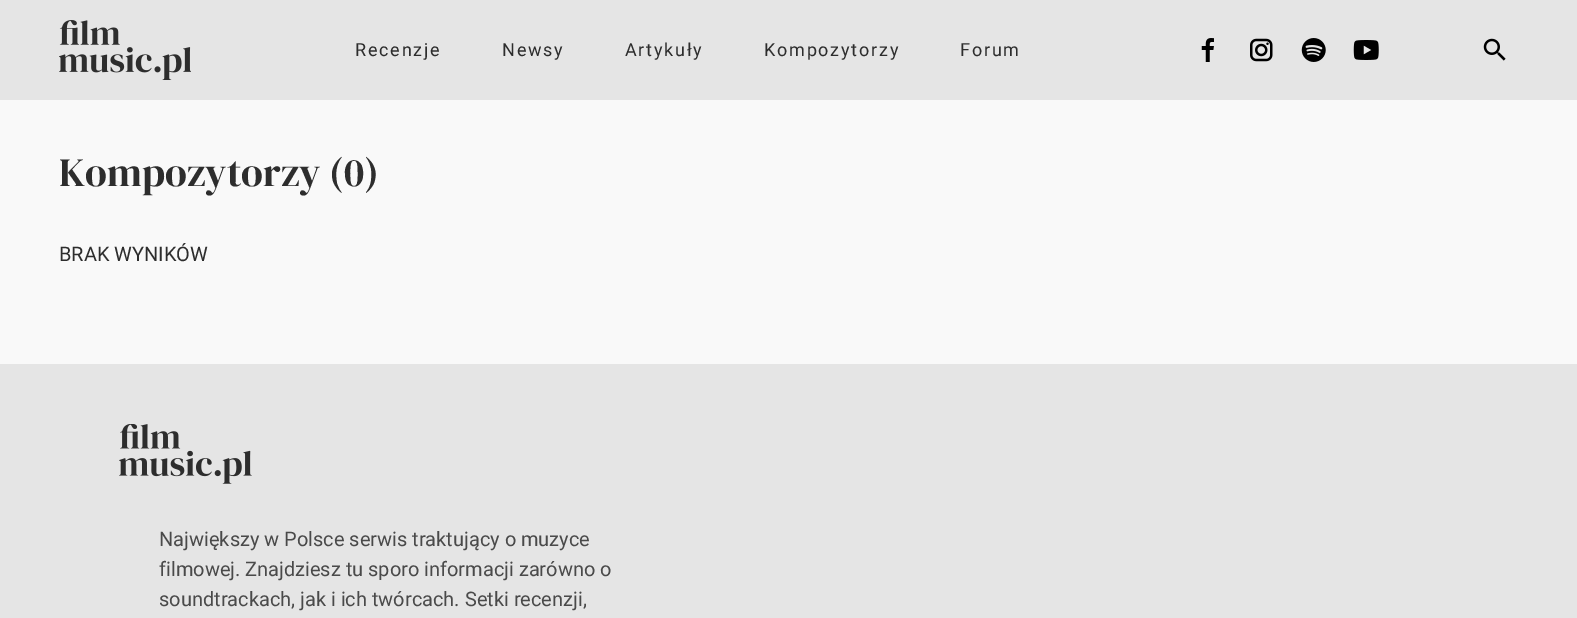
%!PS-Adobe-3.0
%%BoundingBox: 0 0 1577 618
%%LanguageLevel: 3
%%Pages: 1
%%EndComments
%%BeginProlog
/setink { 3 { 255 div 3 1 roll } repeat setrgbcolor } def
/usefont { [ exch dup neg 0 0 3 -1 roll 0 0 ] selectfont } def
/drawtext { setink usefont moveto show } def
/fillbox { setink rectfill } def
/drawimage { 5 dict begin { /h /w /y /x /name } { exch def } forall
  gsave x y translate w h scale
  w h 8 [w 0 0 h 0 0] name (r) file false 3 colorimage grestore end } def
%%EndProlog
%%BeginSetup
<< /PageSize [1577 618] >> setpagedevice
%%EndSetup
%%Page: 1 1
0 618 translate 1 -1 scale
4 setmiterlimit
0 0 1577 618 249 249 249 fillbox
0 0 1577 100 229 229 229 fillbox
(assets/img1.rgb) 59 20 132 60 drawimage
/Roboto-Regular 18 usefont
45 45 45 setink
355 56 moveto 1.75 0 (Recenzje) ashow
502 56 moveto 1.75 0 (Newsy) ashow
625 56 moveto 1.75 0 (Artykuły) ashow
764 56 moveto 1.75 0 (Kompozytorzy) ashow
960 56 moveto 1.75 0 (Forum) ashow
(assets/img2.rgb) 1201 38 13 24 drawimage
(assets/img3.rgb) 1250 38 23 24 drawimage
(assets/img4.rgb) 1301 38 25 24 drawimage
(assets/img5.rgb) 1353 40 26 20 drawimage
(assets/img6.rgb) 1483 38 23 23 drawimage
(Kompozytorzy \(0\)) 59 186 /DMSerifDisplay-Regular 40 45 45 45 drawtext
(BRAK WYNIKÓW) 59 261 /Roboto-Regular 20 45 45 45 drawtext
0 364 1577 254 229 229 229 fillbox
(assets/img7.rgb) 119 424 133 60 drawimage
(Największy w Polsce serwis traktujący o muzyce) 159 546 /Roboto-Regular 20 74 74 74 drawtext
(filmowej. Znajdziesz tu sporo informacji zarówno o) 159 576 /Roboto-Regular 20 74 74 74 drawtext
(soundtrackach, jak i ich twórcach. Setki recenzji,) 159 606 /Roboto-Regular 20 74 74 74 drawtext
showpage
%%EOF
